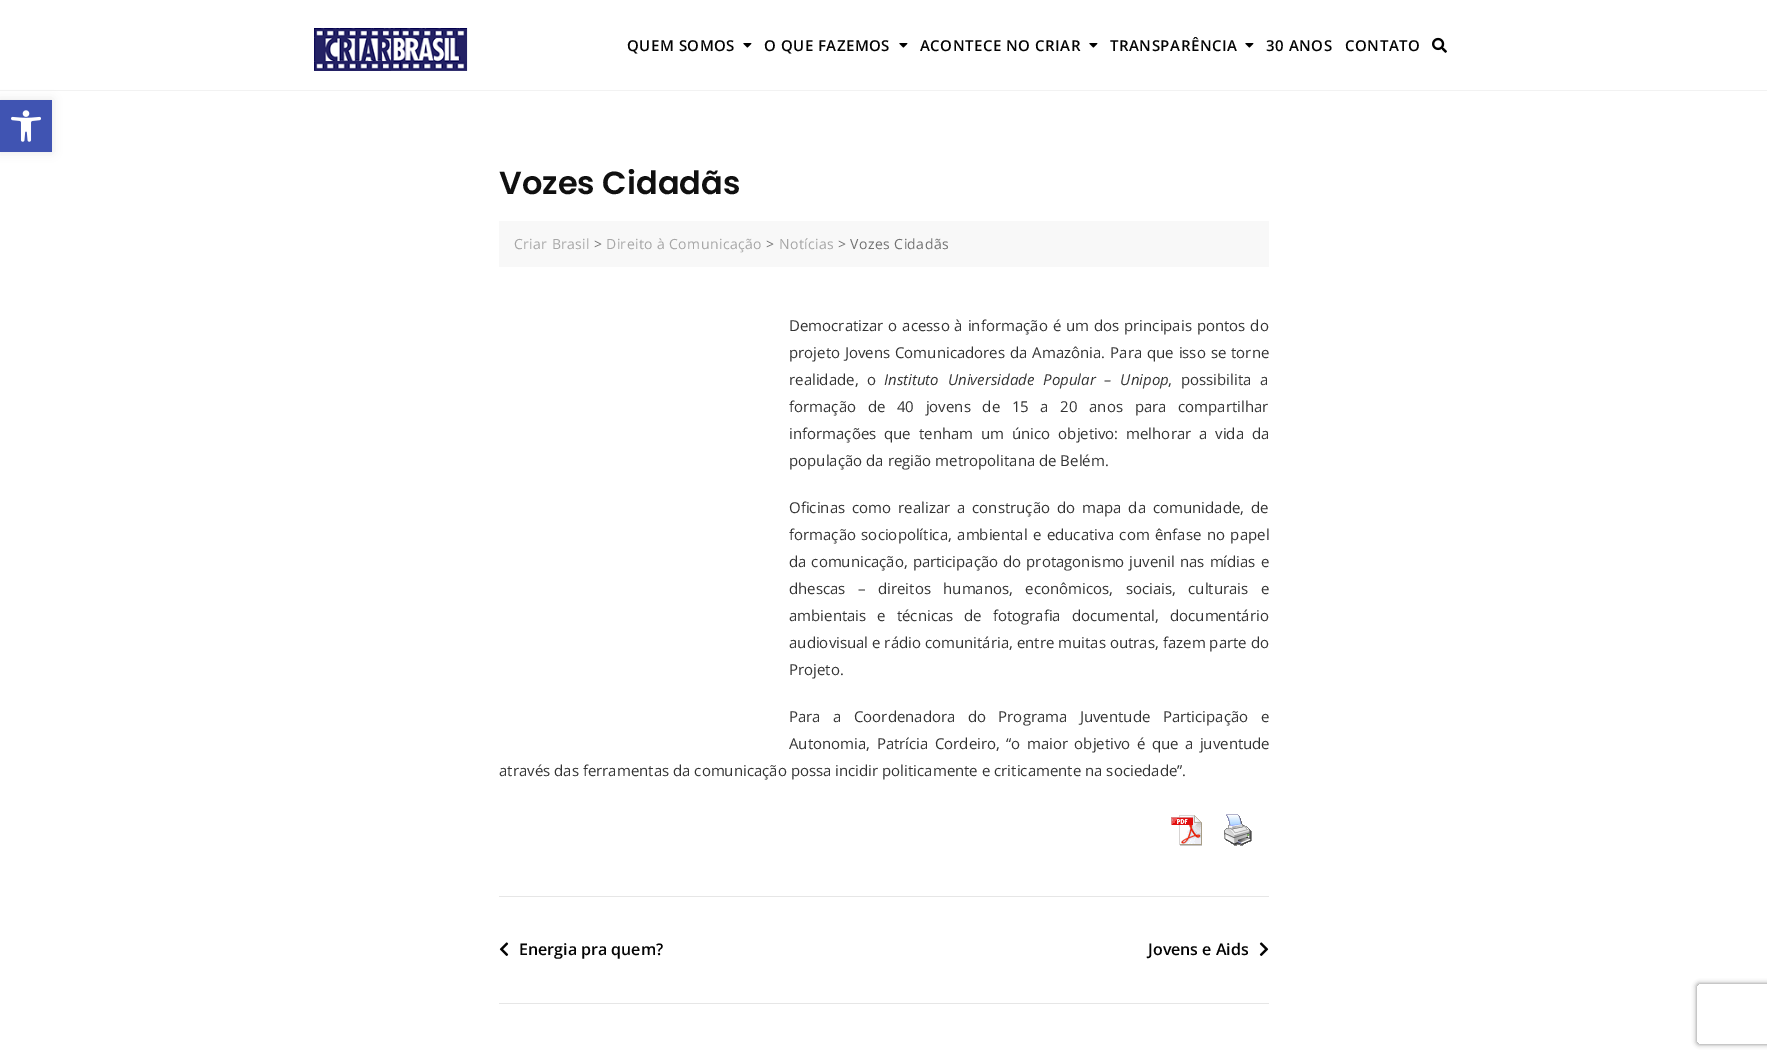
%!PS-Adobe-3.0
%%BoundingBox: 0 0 1767 1058
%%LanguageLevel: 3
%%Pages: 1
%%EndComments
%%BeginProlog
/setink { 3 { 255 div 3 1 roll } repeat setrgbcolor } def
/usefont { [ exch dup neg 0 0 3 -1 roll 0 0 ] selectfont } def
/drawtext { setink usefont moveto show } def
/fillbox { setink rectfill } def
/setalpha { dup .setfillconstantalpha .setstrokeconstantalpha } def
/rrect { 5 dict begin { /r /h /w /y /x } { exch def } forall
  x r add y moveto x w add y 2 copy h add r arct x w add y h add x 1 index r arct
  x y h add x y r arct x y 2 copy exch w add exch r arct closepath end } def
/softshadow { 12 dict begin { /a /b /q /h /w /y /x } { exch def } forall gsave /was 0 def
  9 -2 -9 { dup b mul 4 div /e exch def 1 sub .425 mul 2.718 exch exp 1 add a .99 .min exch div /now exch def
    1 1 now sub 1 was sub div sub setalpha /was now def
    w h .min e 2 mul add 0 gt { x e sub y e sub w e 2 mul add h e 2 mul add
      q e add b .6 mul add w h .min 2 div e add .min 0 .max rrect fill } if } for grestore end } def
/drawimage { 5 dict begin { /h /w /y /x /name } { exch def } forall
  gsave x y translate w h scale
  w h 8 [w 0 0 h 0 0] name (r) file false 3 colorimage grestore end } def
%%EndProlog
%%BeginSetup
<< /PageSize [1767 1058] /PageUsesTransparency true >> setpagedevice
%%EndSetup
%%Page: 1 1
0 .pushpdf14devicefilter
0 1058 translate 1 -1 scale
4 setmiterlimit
0 0 1767 1058 255 255 255 fillbox
0 90 1767 1 242 242 242 fillbox
0 0 0 setink
0 100 52 52 0 5 0.1 softshadow
0 100 52 52 64 84 178 fillbox
(assets/img1.rgb) 11 110 30 32 drawimage
(assets/img2.rgb) 314 28 154 43 drawimage
/OpenSans-SemiBold 15 usefont
3 3 3 setink
627 51 moveto 0.5 0 (QUEM SOMOS) ashow
(assets/img3.rgb) 743 43 9 5 drawimage
764 51 moveto 0.5 0 (O QUE FAZEMOS) ashow
(assets/img3.rgb) 899 43 9 5 drawimage
920 51 moveto 0.5 0 (ACONTECE NO CRIAR) ashow
(assets/img3.rgb) 1089 43 9 5 drawimage
1110 51 moveto 0.5 0 (TRANSPARÊNCIA) ashow
(assets/img3.rgb) 1245 43 9 5 drawimage
1266 51 moveto 0.5 0 (30 ANOS) ashow
1345 51 moveto 0.5 0 (CONTATO) ashow
(assets/img4.rgb) 1432 37 15 16 drawimage
(Vozes Cidadãs) 499 194 /Poppins-SemiBold 32 16 16 16 drawtext
499 221 770 46 248 248 248 fillbox
/OpenSans-Regular 14 usefont
166 166 166 setink
514 249 moveto 0.4 0 (Criar Brasil) ashow
113 113 113 setink
594 249 moveto 0.4 0 (>) ashow
166 166 166 setink
606 249 moveto 0.4 0 (Direito à Comunicação) ashow
113 113 113 setink
766 249 moveto 0.4 0 (>) ashow
166 166 166 setink
779 249 moveto 0.4 0 (Notícias) ashow
113 113 113 setink
838 249 moveto 0.4 0 (> Vozes Cidadãs) ashow
/OpenSans-Regular 15 usefont
51 51 51 setink
789 331 moveto 1 0 32 (Democratizar o acesso à informação é um dos principais pontos do) widthshow
789 358 moveto 1 0 32 (projeto Jovens Comunicadores da Amazônia. Para que isso se torne) widthshow
789 385 moveto 5 0 32 (realidade, o) widthshow
/OpenSans-Italic 15 usefont
884 385 moveto 5 0 32 (Instituto Universidade Popular – Unipop) widthshow
/OpenSans-Regular 15 usefont
1168 385 moveto 5 0 32 (, possibilita a) widthshow
789 412 moveto 7.75 0 32 (formação de 40 jovens de 15 a 20 anos para compartilhar) widthshow
789 439 moveto 4 0 32 (informações que tenham um único objetivo: melhorar a vida da) widthshow
(população da região metropolitana de Belém.) 789 466 /OpenSans-Regular 15 51 51 51 drawtext
789 513 moveto 3 0 32 (Oficinas como realizar a construção do mapa da comunidade, de) widthshow
789 540 moveto 1.5 0 32 (formação sociopolítica, ambiental e educativa com ênfase no papel) widthshow
789 567 moveto 1 0 32 (da comunicação, participação do protagonismo juvenil nas mídias e) widthshow
789 594 moveto 8.5 0 32 (dhescas – direitos humanos, econômicos, sociais, culturais e) widthshow
789 621 moveto 7 0 32 (ambientais e técnicas de fotografia documental, documentário) widthshow
(audiovisual e rádio comunitária, entre muitas outras, fazem parte do) 789 648 /OpenSans-Regular 15 51 51 51 drawtext
(Projeto.) 789 675 /OpenSans-Regular 15 51 51 51 drawtext
789 722 moveto 8.5 0 32 (Para a Coordenadora do Programa Juventude Participação e) widthshow
789 749 moveto 2.5 0 32 (Autonomia, Patrícia Cordeiro, “o maior objetivo é que a juventude) widthshow
(através das ferramentas da comunicação possa incidir politicamente e criticamente na sociedade”.) 499 776 /OpenSans-Regular 15 51 51 51 drawtext
(assets/img5.rgb) 1171 815 31 31 drawimage
(assets/img6.rgb) 1224 814 28 32 drawimage
499 896 770 1 230 230 230 fillbox
499 1003 770 1 230 230 230 fillbox
(assets/img7.rgb) 499 942 10 14 drawimage
(Energia pra quem?) 519 955 /OpenSans-SemiBold 16 3 3 3 drawtext
(Jovens e Aids) 1148 955 /OpenSans-SemiBold 16 3 3 3 drawtext
(assets/img8.rgb) 1259 942 10 14 drawimage
gsave
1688 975 moveto 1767 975 lineto 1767 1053 lineto 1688 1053 lineto closepath 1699 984 moveto 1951 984 lineto 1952 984 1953 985 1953 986 curveto 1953 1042 lineto 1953 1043 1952 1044 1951 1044 curveto 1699 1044 lineto 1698 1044 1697 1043 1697 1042 curveto 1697 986 lineto 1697 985 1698 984 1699 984 curveto closepath eoclip newpath
128 128 128 setink
1697 984 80 60 2 2.5 1 softshadow
grestore
.poppdf14devicefilter showpage
%%EOF
